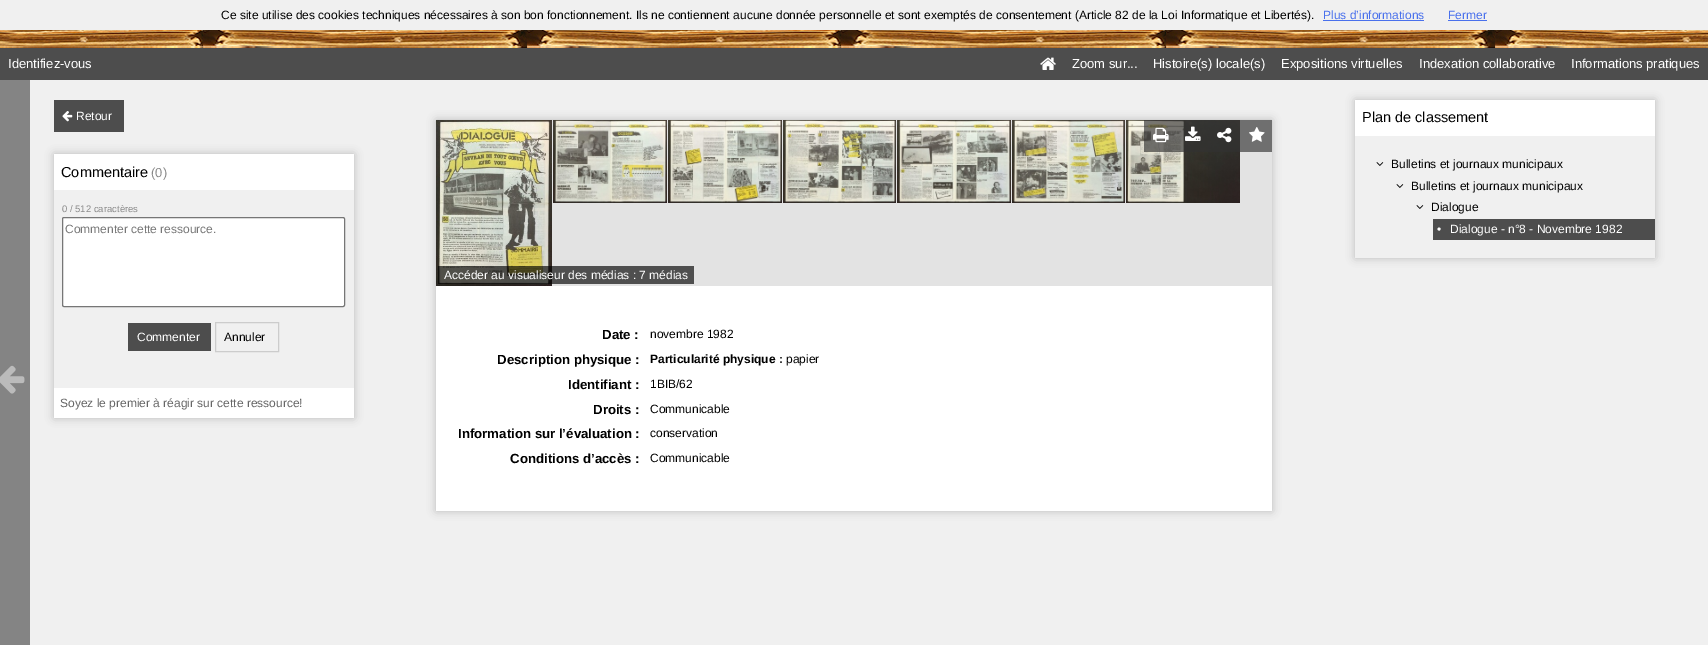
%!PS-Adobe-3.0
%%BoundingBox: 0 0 1708 645
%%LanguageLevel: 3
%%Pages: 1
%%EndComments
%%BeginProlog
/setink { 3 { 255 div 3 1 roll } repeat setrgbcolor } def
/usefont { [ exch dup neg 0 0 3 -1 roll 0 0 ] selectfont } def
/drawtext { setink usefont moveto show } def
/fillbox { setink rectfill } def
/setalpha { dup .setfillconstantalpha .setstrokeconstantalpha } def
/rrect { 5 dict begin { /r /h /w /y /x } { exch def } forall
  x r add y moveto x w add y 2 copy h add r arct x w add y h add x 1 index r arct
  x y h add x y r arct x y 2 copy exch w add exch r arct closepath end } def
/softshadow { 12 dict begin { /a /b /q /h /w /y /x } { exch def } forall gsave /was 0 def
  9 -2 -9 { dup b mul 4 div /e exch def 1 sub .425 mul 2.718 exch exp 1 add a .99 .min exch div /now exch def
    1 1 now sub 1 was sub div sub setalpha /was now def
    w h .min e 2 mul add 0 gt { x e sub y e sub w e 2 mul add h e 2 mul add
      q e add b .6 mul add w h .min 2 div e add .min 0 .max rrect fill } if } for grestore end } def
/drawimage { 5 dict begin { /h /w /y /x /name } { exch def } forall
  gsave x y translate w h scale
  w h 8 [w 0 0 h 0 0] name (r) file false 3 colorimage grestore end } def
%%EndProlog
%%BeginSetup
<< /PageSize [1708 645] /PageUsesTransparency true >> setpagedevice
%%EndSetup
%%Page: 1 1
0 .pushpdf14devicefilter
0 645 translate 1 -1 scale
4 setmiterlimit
0 0 1708 645 240 240 240 fillbox
(Ce site utilise des cookies techniques nécessaires à son bon fonctionnement. Ils ne contiennent aucune donnée personnelle et sont exemptés de consentement \(Article 82 de la Loi Informatique et Libertés\).) 221 19 /LiberationSans-Regular 12 0 0 0 drawtext
(Plus d’informations) 1323 19 /LiberationSans-Regular 12 73 112 236 drawtext
1323 20 101 1 73 112 236 fillbox
(Fermer) 1448 19 /LiberationSans-Regular 12 73 112 236 drawtext
1448 20 39 1 73 112 236 fillbox
(assets/img1.rgb) 0 30 1708 18 drawimage
0 48 1708 32 77 77 77 fillbox
(Identifiez-vous) 8 68 /LiberationSans-Regular 13 255 255 255 drawtext
(assets/img2.rgb) 1040 57 16 13 drawimage
(Zoom sur...) 1072 68 /LiberationSans-Regular 13 255 255 255 drawtext
(Histoire\(s\) locale\(s\)) 1153 68 /LiberationSans-Regular 13 255 255 255 drawtext
(Expositions virtuelles) 1281 68 /LiberationSans-Regular 13 255 255 255 drawtext
(Indexation collaborative) 1419 68 /LiberationSans-Regular 13 255 255 255 drawtext
(Informations pratiques) 1571 68 /LiberationSans-Regular 13 255 255 255 drawtext
0 80 30 565 132 132 132 fillbox
(assets/img3.rgb) 0 365 25 29 drawimage
54 100 70 32 77 77 77 fillbox
(assets/img4.rgb) 62 111 11 11 drawimage
(Retour) 76 120 /LiberationSans-Regular 12 255 255 255 drawtext
gsave
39 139 moveto 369 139 lineto 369 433 lineto 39 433 lineto closepath 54 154 moveto 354 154 lineto 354 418 lineto 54 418 lineto closepath eoclip newpath
187 187 187 setink
54 154 300 264 0 4.5 1 softshadow
grestore
54 154 300 36 255 255 255 fillbox
(Commentaire) 61 177 /LiberationSans-Regular 14.5 0 0 0 drawtext
(\(0\)) 151 177 /LiberationSans-Regular 13 136 136 136 drawtext
(0 / 512 caractères) 62 212 /LiberationSans-Regular 9.5 136 136 136 drawtext
255 255 255 setink
62.5 217.5 282 89 1.5 rrect gsave fill grestore
118 118 118 setink
stroke
(Commenter cette ressource.) 65 233 /LiberationSans-Regular 12 119 119 119 drawtext
128 323 83 28 77 77 77 fillbox
(Commenter) 137 341 /LiberationSans-Regular 12 255 255 255 drawtext
204 204 204 setink
215.5 322.5 63 29 rectstroke
(Annuler) 224 341 /LiberationSans-Regular 12 0 0 0 drawtext
54 388 300 30 255 255 255 fillbox
(Soyez le premier à réagir sur cette ressource!) 60 407 /LiberationSans-Regular 12 102 102 102 drawtext
gsave
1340 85 moveto 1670 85 lineto 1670 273 lineto 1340 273 lineto closepath 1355 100 moveto 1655 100 lineto 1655 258 lineto 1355 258 lineto closepath eoclip newpath
187 187 187 setink
1355 100 300 158 0 4.5 1 softshadow
grestore
1355 100 300 36 255 255 255 fillbox
(Plan de classement) 1362 122 /LiberationSans-Regular 14.5 0 0 0 drawtext
(assets/img5.rgb) 1376 162 8 4 drawimage
(Bulletins et journaux municipaux) 1391 168 /LiberationSans-Regular 12 0 0 0 drawtext
(assets/img5.rgb) 1396 184 8 4 drawimage
(Bulletins et journaux municipaux) 1411 190 /LiberationSans-Regular 12 0 0 0 drawtext
(assets/img5.rgb) 1416 205 8 4 drawimage
(Dialogue) 1431 211 /LiberationSans-Regular 12 0 0 0 drawtext
1433 219 222 21 77 77 77 fillbox
(•) 1437 233 /LiberationSans-Regular 12 255 255 255 drawtext
(Dialogue - n°8 - Novembre 1982) 1450 233 /LiberationSans-Regular 12 255 255 255 drawtext
187 187 187 setink
436 120 836 391 0 4.5 1 softshadow
436 286 836 225 255 255 255 fillbox
552 120 720 166 227 227 227 fillbox
(assets/img16.rgb) 1126 120 114 83 drawimage
0.65 setalpha
1144 120 32 32 49 49 49 fillbox
1 setalpha
(assets/img6.rgb) 1153 127 16 16 drawimage
0.65 setalpha
1176 120 32 32 49 49 49 fillbox
1 setalpha
(assets/img7.rgb) 1185 126 16 15 drawimage
0.65 setalpha
1208 120 32 32 49 49 49 fillbox
1 setalpha
(assets/img8.rgb) 1217 127 15 16 drawimage
1240 120 32 32 111 111 111 fillbox
(assets/img9.rgb) 1249 127 16 15 drawimage
(assets/img10.rgb) 436 120 116 166 drawimage
(assets/img11.rgb) 553 120 114 83 drawimage
(assets/img12.rgb) 668 120 114 83 drawimage
(assets/img13.rgb) 783 120 113 83 drawimage
(assets/img14.rgb) 897 120 114 83 drawimage
(assets/img15.rgb) 1012 120 113 83 drawimage
0.65 setalpha
438 266 256 18 0 0 0 fillbox
1 setalpha
(Accéder au visualiseur des médias : 7 médias) 444 279 /LiberationSans-Regular 12 255 255 255 drawtext
(Date :) 602 339 /LiberationSans-Bold 13.25 0 0 0 drawtext
(novembre 1982) 650 338 /LiberationSans-Regular 12 0 0 0 drawtext
(Description physique :) 497 364 /LiberationSans-Bold 13.25 0 0 0 drawtext
(Particularité physique :) 650 363 /LiberationSans-Bold 12 0 0 0 drawtext
(papier) 786 363 /LiberationSans-Regular 12 0 0 0 drawtext
(Identifiant :) 568 389 /LiberationSans-Bold 13.25 0 0 0 drawtext
(1BIB/62) 650 388 /LiberationSans-Regular 12 0 0 0 drawtext
(Droits :) 593 414 /LiberationSans-Bold 13.25 0 0 0 drawtext
(Communicable) 650 413 /LiberationSans-Regular 12 0 0 0 drawtext
(Information sur l’évaluation :) 458 438 /LiberationSans-Bold 13.25 0 0 0 drawtext
(conservation) 650 437 /LiberationSans-Regular 12 0 0 0 drawtext
(Conditions d’accès :) 510 463 /LiberationSans-Bold 13.25 0 0 0 drawtext
(Communicable) 650 462 /LiberationSans-Regular 12 0 0 0 drawtext
.poppdf14devicefilter showpage
%%EOF
